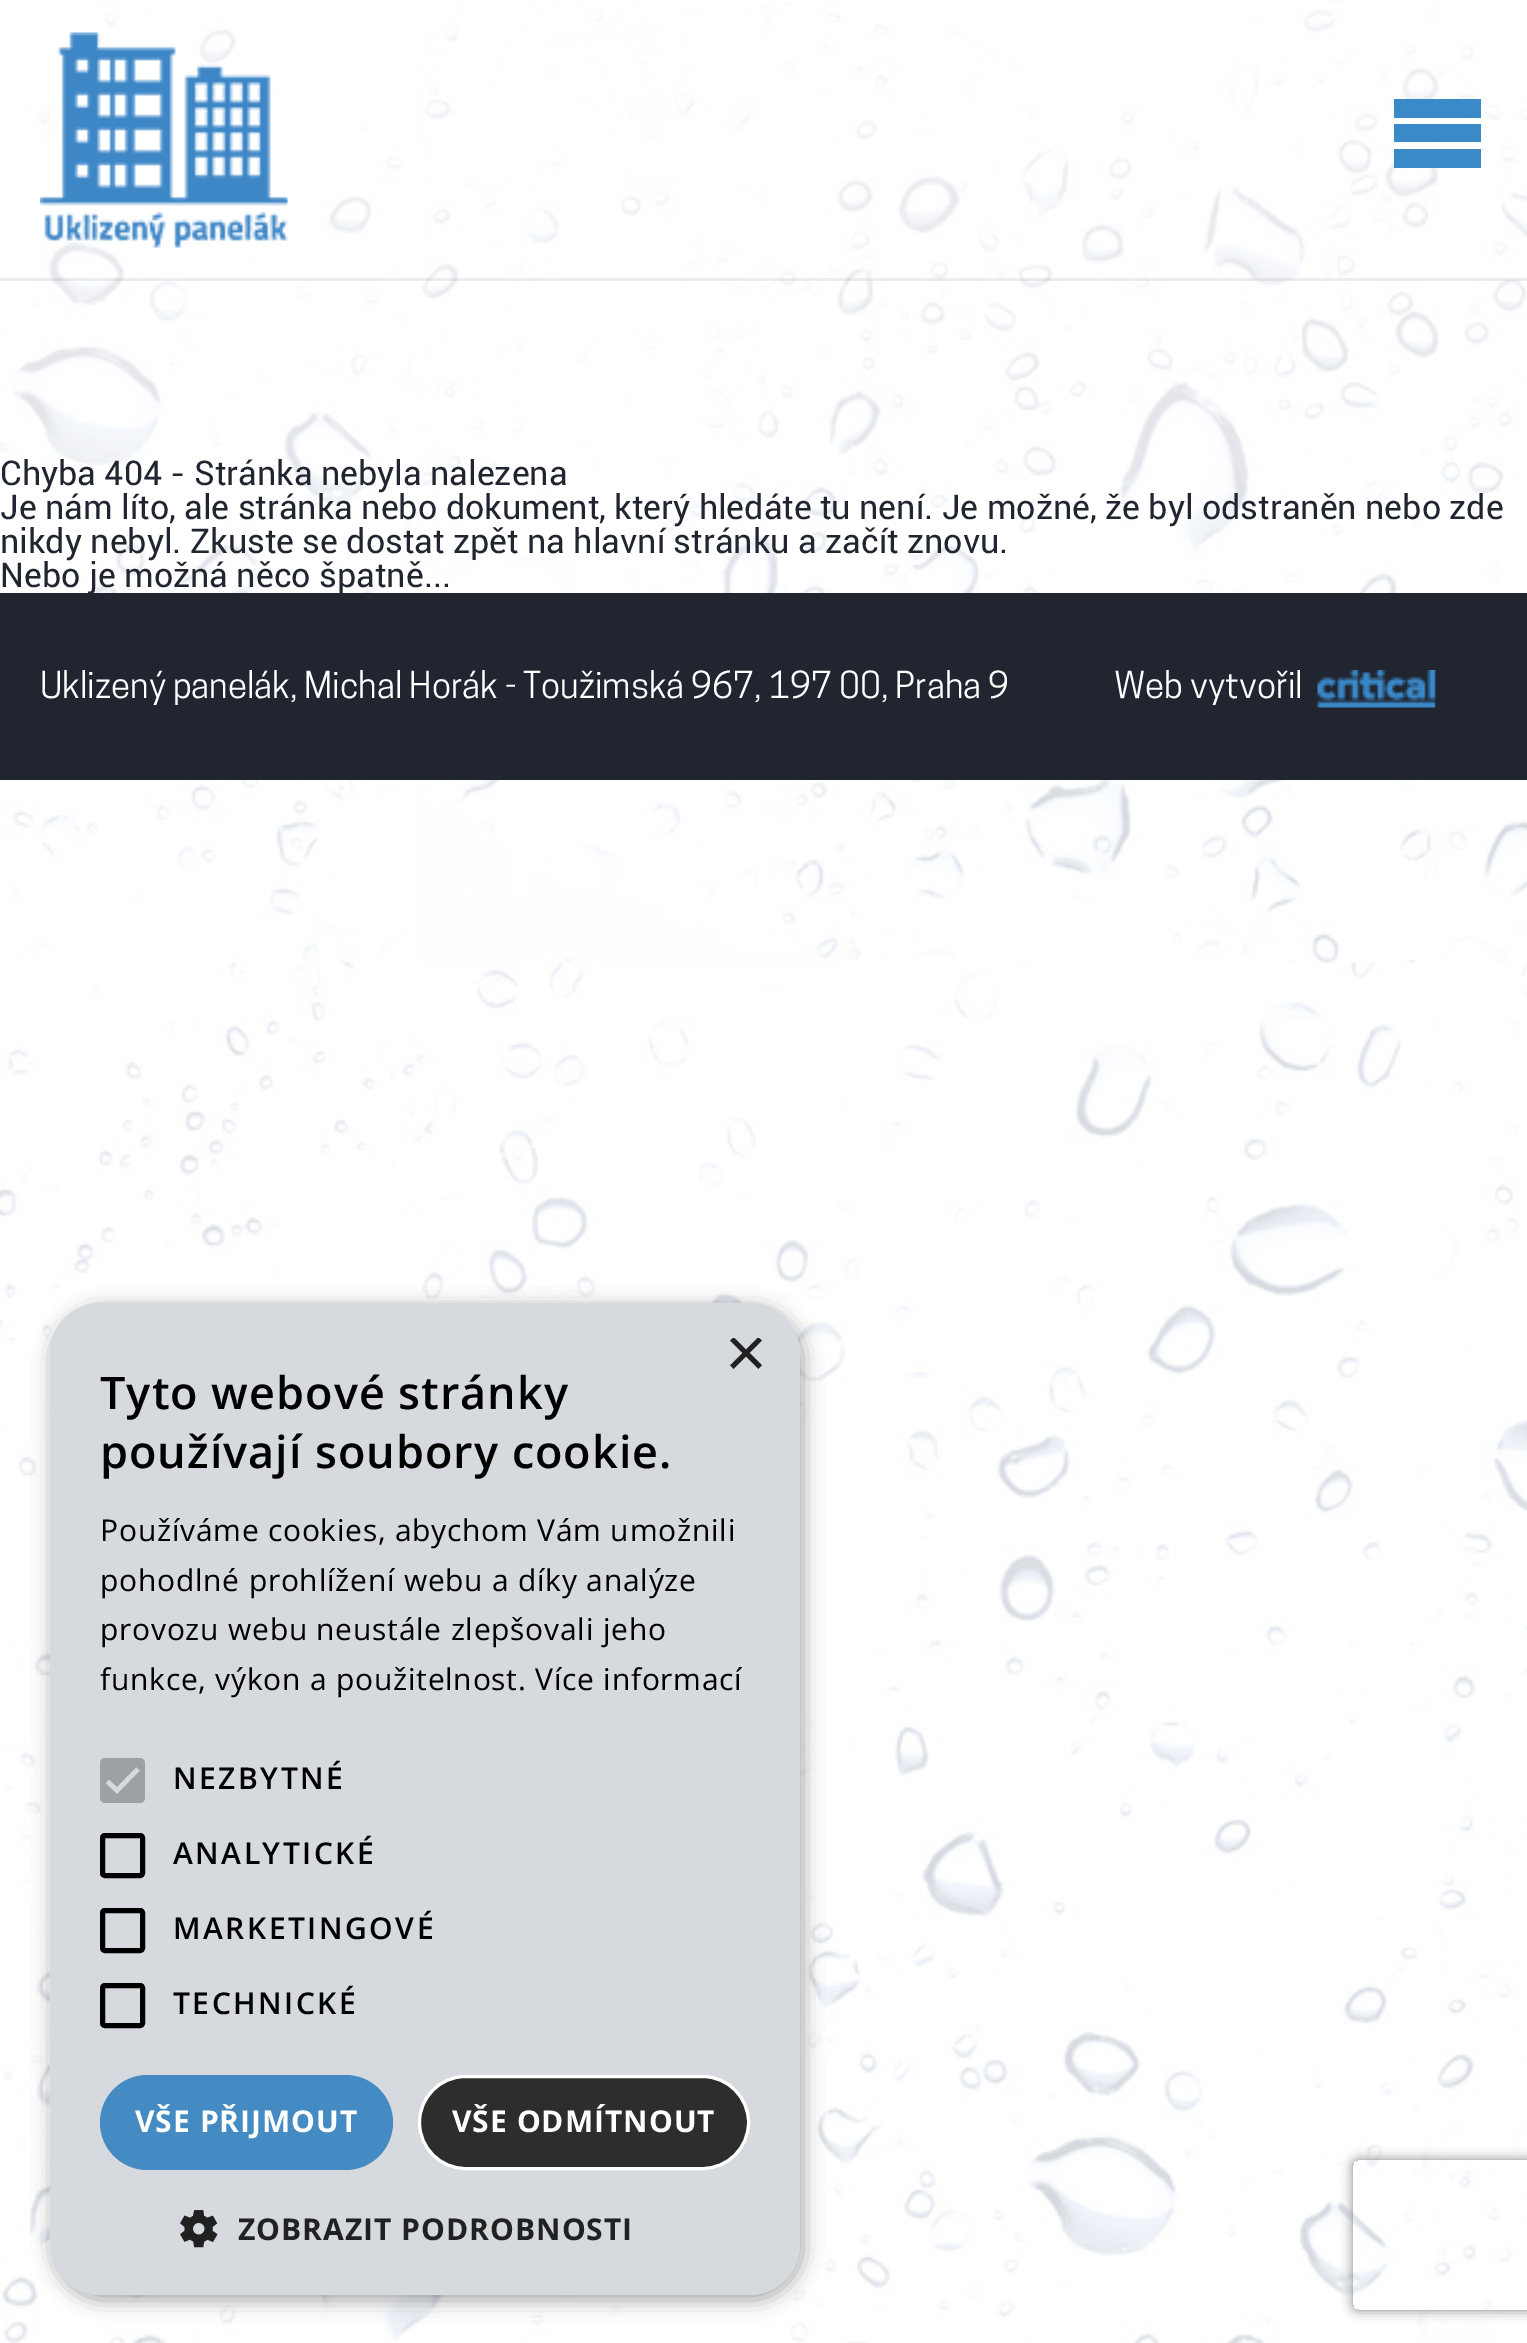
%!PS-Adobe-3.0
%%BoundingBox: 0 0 1527 2343
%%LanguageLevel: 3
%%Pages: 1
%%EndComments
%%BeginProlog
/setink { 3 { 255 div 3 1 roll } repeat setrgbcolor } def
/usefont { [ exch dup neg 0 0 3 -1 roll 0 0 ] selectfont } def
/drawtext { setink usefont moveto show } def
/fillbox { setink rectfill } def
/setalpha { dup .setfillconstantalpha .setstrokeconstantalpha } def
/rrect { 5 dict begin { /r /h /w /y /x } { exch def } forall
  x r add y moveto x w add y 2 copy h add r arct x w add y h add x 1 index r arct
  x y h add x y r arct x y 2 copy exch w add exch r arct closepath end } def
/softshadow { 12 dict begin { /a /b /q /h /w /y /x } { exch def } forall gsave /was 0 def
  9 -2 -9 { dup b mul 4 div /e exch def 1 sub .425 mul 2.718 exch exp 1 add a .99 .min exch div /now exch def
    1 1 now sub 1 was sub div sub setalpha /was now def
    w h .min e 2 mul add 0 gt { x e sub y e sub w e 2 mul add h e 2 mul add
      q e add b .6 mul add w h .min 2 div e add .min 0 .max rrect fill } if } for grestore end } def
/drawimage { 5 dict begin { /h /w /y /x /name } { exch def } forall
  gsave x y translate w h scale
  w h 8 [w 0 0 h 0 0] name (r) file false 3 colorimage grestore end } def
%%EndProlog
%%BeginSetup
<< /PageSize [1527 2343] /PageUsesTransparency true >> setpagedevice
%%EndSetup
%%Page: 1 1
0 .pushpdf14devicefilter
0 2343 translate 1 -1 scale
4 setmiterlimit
0 0 1527 2343 255 255 255 fillbox
(assets/img1.rgb) 0 0 1527 2343 drawimage
(assets/img2.rgb) 16 0 1511 796 drawimage
0.07 setalpha
0 278 1527 3 0 0 0 fillbox
1 setalpha
(assets/img3.rgb) 40 32 248 216 drawimage
58 137 201 setink
1394 99 moveto 1481 99 lineto 1481 118 lineto 1394 118 lineto closepath 1394 124 moveto 1481 124 lineto 1481 142 lineto 1394 142 lineto closepath 1394 149 moveto 1481 149 lineto 1481 168 lineto 1394 168 lineto closepath fill
(Chyba 404 - Stránka nebyla nalezena) 0 485 /Roboto-Regular 34 32 37 48 drawtext
(Je nám líto, ale stránka nebo dokument, který hledáte tu není. Je možné, že byl odstraněn nebo zde) 0 519 /Roboto-Regular 34 32 37 48 drawtext
(nikdy nebyl. Zkuste se dostat zpět na hlavní stránku a začít znovu.) 0 553 /Roboto-Regular 34 32 37 48 drawtext
0 593 1527 187 32 37 48 fillbox
(Nebo je možná něco špatně...) 0 587 /Roboto-Regular 34 32 37 48 drawtext
(Uklizený panelák, Michal Horák - Toužimská 967, 197 00, Praha 9) 40 698 /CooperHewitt-Regular 35 255 255 255 drawtext
(Web vytvořil) 1114 698 /CooperHewitt-Regular 35 255 255 255 drawtext
(assets/img4.rgb) 1317 670 119 38 drawimage
0 0 0 setink
53 1308 750 992 50 10 0.35 softshadow
214 217 222 setink
50 1303 750 992 50 rrect fill
gsave
725 1338 38 37 rectclip
(×) 725 1377 /LiberationSans-Regular 72 32 33 33 drawtext
grestore
/OpenSans-SemiBold 45 usefont
0 0 0 setink
100 1409 moveto 1 0 (Tyto webové stránky) ashow
100 1468 moveto 1 0 (používají soubory cookie.) ashow
/OpenSans-Regular 30 usefont
100 1541 moveto 0.75 0 (Používáme cookies, abychom Vám umožnili) ashow
100 1591 moveto 0.75 0 (pohodlné prohlížení webu a díky analýze) ashow
100 1640 moveto 0.75 0 (provozu webu neustále zlepšovali jeho) ashow
100 1690 moveto 0.75 0 (funkce, výkon a použitelnost. Více informací) ashow
158 161 164 setink
100 1758 45 45 5 rrect fill
214 217 222 setink
4.6 setlinewidth
107.5 1781.5 moveto 117 1790.5 lineto 138 1769 lineto stroke
/OpenSans-SemiBold 30 usefont
0 0 0 setink
173 1789 moveto 2.5 0 (NEZBYTNÉ) ashow
5 setlinewidth
102.5 1835.5 40 40 2.5 rrect stroke
173 1864 moveto 2.5 0 (ANALYTICKÉ) ashow
102.5 1910.5 40 40 2.5 rrect stroke
173 1939 moveto 2.5 0 (MARKETINGOVÉ) ashow
102.5 1985.5 40 40 2.5 rrect stroke
173 2014 moveto 2.5 0 (TECHNICKÉ) ashow
68 139 196 setink
100 2075 293 95 47.5 rrect fill
/OpenSans-Bold 30 usefont
255 255 255 setink
135 2132 moveto 1 0 (VŠE PŘIJMOUT) ashow
45 45 45 setink
419.5 2076.5 329 92 46 rrect gsave fill grestore
255 255 255 setink
3 setlinewidth
stroke
452 2132 moveto 1 0 (VŠE ODMÍTNOUT) ashow
(assets/img5.rgb) 180 2210 38 38 drawimage
32 33 33 setink
238 2240 moveto 1 0 (ZOBRAZIT PODROBNOSTI) ashow
gsave
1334 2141 moveto 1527 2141 lineto 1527 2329 lineto 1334 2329 lineto closepath 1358 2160 moveto 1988 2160 lineto 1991 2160 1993 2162 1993 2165 curveto 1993 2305 lineto 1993 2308 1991 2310 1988 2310 curveto 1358 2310 lineto 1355 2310 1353 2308 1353 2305 curveto 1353 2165 lineto 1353 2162 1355 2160 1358 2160 curveto closepath eoclip newpath
128 128 128 setink
1353 2160 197 150 5 6 1 softshadow
grestore
.poppdf14devicefilter showpage
%%EOF
